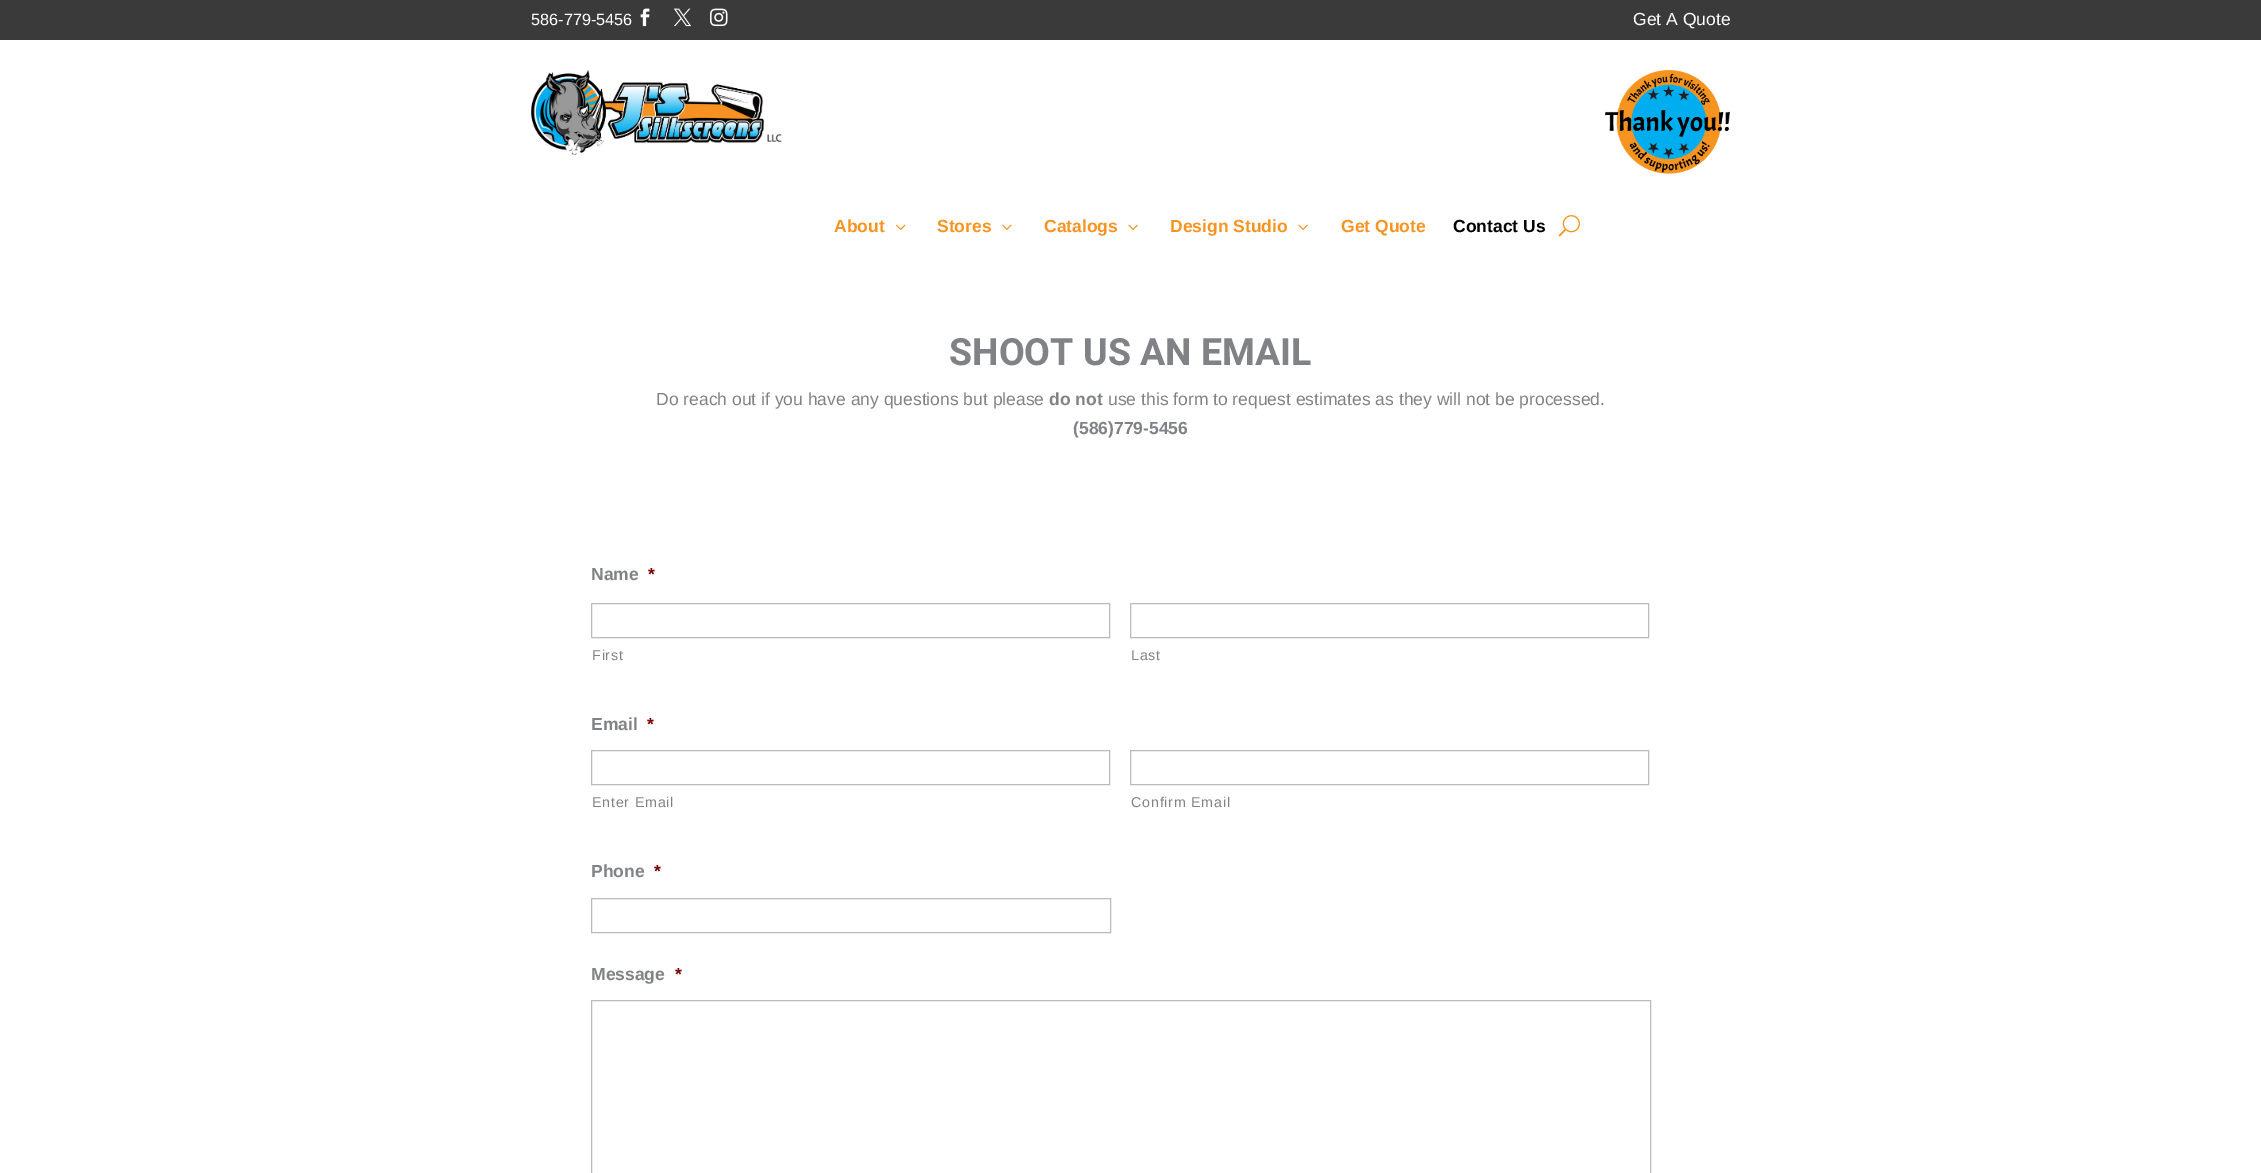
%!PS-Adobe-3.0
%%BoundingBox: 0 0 2261 1173
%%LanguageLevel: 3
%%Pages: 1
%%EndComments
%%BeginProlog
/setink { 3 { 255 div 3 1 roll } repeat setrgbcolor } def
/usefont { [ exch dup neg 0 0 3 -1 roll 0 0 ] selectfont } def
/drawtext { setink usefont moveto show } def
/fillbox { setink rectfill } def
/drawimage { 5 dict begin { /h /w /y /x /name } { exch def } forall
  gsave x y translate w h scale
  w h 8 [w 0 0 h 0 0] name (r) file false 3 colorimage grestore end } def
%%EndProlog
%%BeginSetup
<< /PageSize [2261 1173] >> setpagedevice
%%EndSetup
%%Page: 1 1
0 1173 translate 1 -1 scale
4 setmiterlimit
0 0 2261 1173 255 255 255 fillbox
0 0 2261 40 58 58 58 fillbox
(586-779-5456) 531 25 /LiberationSans-Regular 16.25 255 255 255 drawtext
(assets/img1.rgb) 640 8 10 19 drawimage
(assets/img2.rgb) 673 8 18 19 drawimage
(assets/img3.rgb) 710 8 18 19 drawimage
(Get A Quote) 1633 25 /LiberationSans-Regular 17.5 255 255 255 drawtext
(assets/img4.rgb) 531 70 251 85 drawimage
(assets/img5.rgb) 1605 70 125 104 drawimage
(About) 834 232 /LiberationSans-Bold 17.5 247 148 33 drawtext
(assets/img6.rgb) 896 224 10 6 drawimage
(Stores) 937 232 /LiberationSans-Bold 17.5 247 148 33 drawtext
(assets/img7.rgb) 1002 224 10 6 drawimage
(Catalogs) 1044 232 /LiberationSans-Bold 17.5 247 148 33 drawtext
(assets/img8.rgb) 1128 224 10 6 drawimage
(Design Studio) 1170 232 /LiberationSans-Bold 17.5 247 148 33 drawtext
(assets/img8.rgb) 1298 224 10 6 drawimage
(Get Quote) 1341 232 /LiberationSans-Bold 17.5 247 148 33 drawtext
(Contact Us) 1453 232 /LiberationSans-Bold 17.5 0 0 0 drawtext
(assets/img9.rgb) 1558 215 22 22 drawimage
(SHOOT US AN EMAIL) 949 365 /Heebo-Bold 37.5 128 130 133 drawtext
(Do reach out if you have any questions but please) 656 405 /LiberationSans-Regular 17.5 128 130 133 drawtext
(do not) 1049 405 /LiberationSans-Bold 17.5 128 130 133 drawtext
(use this form to request estimates as they will not be processed.) 1108 405 /LiberationSans-Regular 17.5 128 130 133 drawtext
(\(586\)779-5456) 1073 434 /LiberationSans-Bold 17.5 128 130 133 drawtext
(Name) 591 580 /LiberationSans-Bold 17.5 128 130 133 drawtext
(*) 648 580 /LiberationSans-Bold 17.5 121 0 0 drawtext
187 187 187 setink
591.5 603.5 518 34 rectstroke
/LiberationSans-Regular 14.25 usefont
128 130 133 setink
592 660 moveto 0.8 0 (First) ashow
187 187 187 setink
1130.5 603.5 518 34 rectstroke
128 130 133 setink
1131 660 moveto 0.8 0 (Last) ashow
(Email) 591 730 /LiberationSans-Bold 17.5 128 130 133 drawtext
(*) 647 730 /LiberationSans-Bold 17.5 121 0 0 drawtext
187 187 187 setink
591.5 750.5 518 34 rectstroke
/LiberationSans-Regular 14.25 usefont
128 130 133 setink
592 807 moveto 0.8 0 (Enter Email) ashow
187 187 187 setink
1130.5 750.5 518 34 rectstroke
128 130 133 setink
1131 807 moveto 0.8 0 (Confirm Email) ashow
(Phone) 591 877 /LiberationSans-Bold 17.5 128 130 133 drawtext
(*) 654 877 /LiberationSans-Bold 17.5 121 0 0 drawtext
187 187 187 setink
591.5 898.5 519 34 rectstroke
(Message) 591 980 /LiberationSans-Bold 17.5 128 130 133 drawtext
(*) 675 980 /LiberationSans-Bold 17.5 121 0 0 drawtext
187 187 187 setink
591.5 1000.5 1059 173 rectstroke
showpage
%%EOF
